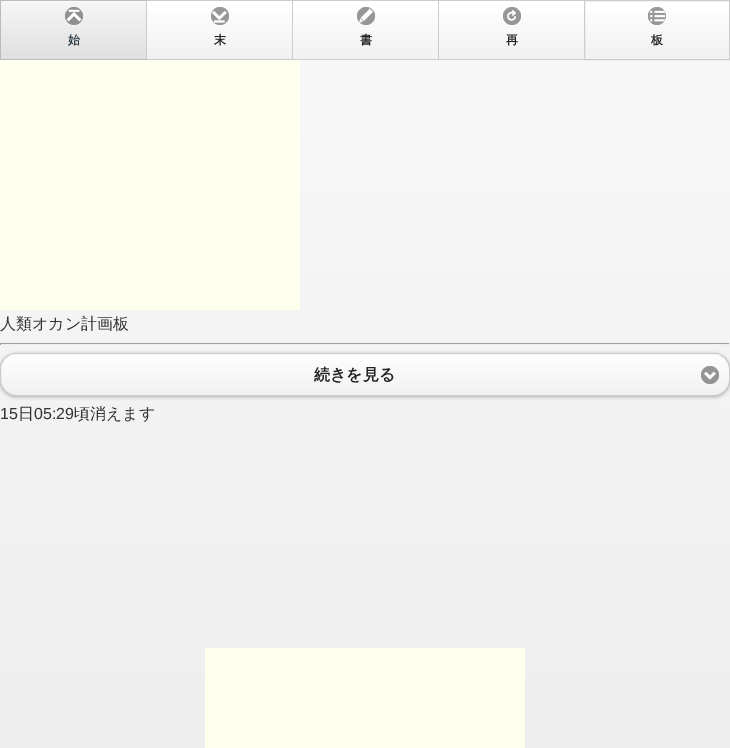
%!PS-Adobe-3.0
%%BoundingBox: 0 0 730 748
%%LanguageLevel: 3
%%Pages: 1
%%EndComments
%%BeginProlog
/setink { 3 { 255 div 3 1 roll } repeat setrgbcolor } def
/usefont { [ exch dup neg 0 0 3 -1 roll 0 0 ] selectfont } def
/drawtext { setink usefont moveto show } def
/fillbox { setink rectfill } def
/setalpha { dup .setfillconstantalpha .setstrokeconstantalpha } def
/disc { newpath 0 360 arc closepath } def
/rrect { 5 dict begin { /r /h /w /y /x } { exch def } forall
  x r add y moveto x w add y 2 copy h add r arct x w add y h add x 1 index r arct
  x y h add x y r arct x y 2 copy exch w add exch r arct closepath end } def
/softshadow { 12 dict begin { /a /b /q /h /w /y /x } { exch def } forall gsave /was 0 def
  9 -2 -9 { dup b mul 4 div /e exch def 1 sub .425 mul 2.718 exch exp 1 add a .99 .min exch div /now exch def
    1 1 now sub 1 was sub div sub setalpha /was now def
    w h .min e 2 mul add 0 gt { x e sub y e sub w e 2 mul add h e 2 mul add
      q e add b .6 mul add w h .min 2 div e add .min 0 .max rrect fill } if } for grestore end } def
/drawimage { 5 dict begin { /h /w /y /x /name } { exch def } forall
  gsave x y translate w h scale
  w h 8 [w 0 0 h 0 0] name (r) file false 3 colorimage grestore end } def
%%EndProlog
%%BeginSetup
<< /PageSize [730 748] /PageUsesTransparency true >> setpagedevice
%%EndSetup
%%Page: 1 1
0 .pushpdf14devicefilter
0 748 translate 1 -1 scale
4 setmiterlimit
0 0 730 748 255 255 255 fillbox
gsave 0 60 moveto 730 60 lineto 730 748 lineto 0 748 lineto closepath clip newpath
<< /ShadingType 2 /ColorSpace /DeviceRGB /Coords [365 0 365 748] /Extend [true true] /Function << /FunctionType 2 /Domain [0 1] /C0 [0.976 0.976 0.976] /C1 [0.933 0.933 0.933] /N 1 >> >> shfill grestore
gsave 1 2 moveto 146 2 lineto 146 59 lineto 1 59 lineto closepath clip newpath
<< /ShadingType 2 /ColorSpace /DeviceRGB /Coords [74 1 74 59] /Extend [true true] /Function << /FunctionType 2 /Domain [0 1] /C0 [0.965 0.965 0.965] /C1 [0.878 0.878 0.878] /N 1 >> >> shfill grestore
0 0 147 1 187 187 187 fillbox
0 59 147 1 187 187 187 fillbox
0 0 1 60 187 187 187 fillbox
1 1 146 1 249 249 249 fillbox
244 244 244 setink
83 16.5 moveto 82.5 27.5 65.5 27.5 65 16.5 curveto 64.5 29 83.5 29 83 16.5 curveto closepath fill
0.4 setalpha
0 0 0 setink
74 16 9 disc fill
1 setalpha
(assets/img1.rgb) 66 9 16 13 drawimage
(始) 68 44 /WenQuanYiZenHei-Bold 12 47 62 70 drawtext
gsave 147 11 moveto 292 11 lineto 292 59 lineto 147 59 lineto closepath clip newpath
<< /ShadingType 2 /ColorSpace /DeviceRGB /Coords [220 1 220 59] /Extend [true true] /Function << /FunctionType 2 /Domain [0 1] /C0 [1 1 1] /C1 [0.945 0.945 0.945] /N 1 >> >> shfill grestore
146 0 439 1 204 204 204 fillbox
146 59 439 1 204 204 204 fillbox
146 0 1 60 204 204 204 fillbox
252 252 252 setink
229 16.5 moveto 228.5 27.5 211.5 27.5 211 16.5 curveto 210.5 29 229.5 29 229 16.5 curveto closepath fill
0.4 setalpha
0 0 0 setink
220 16 9 disc fill
1 setalpha
(assets/img2.rgb) 212 11 15 12 drawimage
(末) 214 44 /WenQuanYiZenHei-Bold 12 34 34 34 drawtext
gsave 293 11 moveto 438 11 lineto 438 59 lineto 293 59 lineto closepath clip newpath
<< /ShadingType 2 /ColorSpace /DeviceRGB /Coords [366 1 366 59] /Extend [true true] /Function << /FunctionType 2 /Domain [0 1] /C0 [1 1 1] /C1 [0.945 0.945 0.945] /N 1 >> >> shfill grestore
292 0 1 60 204 204 204 fillbox
252 252 252 setink
357 16.5 moveto 356.5 29 375.5 29 375 16.5 curveto 374.5 27.5 357.5 27.5 357 16.5 curveto closepath fill
0.4 setalpha
0 0 0 setink
366 16 9 disc fill
1 setalpha
(assets/img3.rgb) 359 8 14 15 drawimage
(書) 360 44 /WenQuanYiZenHei-Bold 12 34 34 34 drawtext
gsave 439 11 moveto 584 11 lineto 584 59 lineto 439 59 lineto closepath clip newpath
<< /ShadingType 2 /ColorSpace /DeviceRGB /Coords [512 1 512 59] /Extend [true true] /Function << /FunctionType 2 /Domain [0 1] /C0 [1 1 1] /C1 [0.945 0.945 0.945] /N 1 >> >> shfill grestore
438 0 1 60 204 204 204 fillbox
252 252 252 setink
521 16.5 moveto 520.5 27.5 503.5 27.5 503 16.5 curveto 502.5 29 521.5 29 521 16.5 curveto closepath fill
0.4 setalpha
0 0 0 setink
512 16 9 disc fill
1 setalpha
(assets/img4.rgb) 507 9 9 12 drawimage
(再) 506 44 /WenQuanYiZenHei-Bold 12 34 34 34 drawtext
gsave 585 11 moveto 729 11 lineto 729 59 lineto 585 59 lineto closepath clip newpath
<< /ShadingType 2 /ColorSpace /DeviceRGB /Coords [657 1 657 59] /Extend [true true] /Function << /FunctionType 2 /Domain [0 1] /C0 [1 1 1] /C1 [0.945 0.945 0.945] /N 1 >> >> shfill grestore
204 204 204 setink
584.5 0.5 145 59 rectstroke
252 252 252 setink
666 16.5 moveto 665.5 27.5 648.5 27.5 648 16.5 curveto 647.5 29 666.5 29 666 16.5 curveto closepath fill
0.4 setalpha
0 0 0 setink
657 16 9 disc fill
1 setalpha
(assets/img5.rgb) 650 10 16 12 drawimage
(板) 651 44 /WenQuanYiZenHei-Bold 12 34 34 34 drawtext
0 60 300 250 255 255 238 fillbox
(人類オカン計画板) 0 329 /WenQuanYiZenHei-Medium 16 51 51 51 drawtext
0 343 730 1 159 159 159 fillbox
729 343 1 2 238 238 238 fillbox
0 344 730 1 238 238 238 fillbox
0 343 1 2 159 159 159 fillbox
gsave
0 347 moveto 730 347 lineto 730 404 lineto 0 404 lineto closepath 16 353 moveto 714 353 lineto 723 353 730 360 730 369 curveto 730 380 lineto 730 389 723 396 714 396 curveto 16 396 lineto 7 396 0 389 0 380 curveto 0 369 lineto 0 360 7 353 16 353 curveto closepath eoclip newpath
0 0 0 setink
0 354 730 43 16 2 0.3 softshadow
grestore
gsave 1 354 728 41 15 rrect clip newpath
<< /ShadingType 2 /ColorSpace /DeviceRGB /Coords [365 354 365 395] /Extend [true true] /Function << /FunctionType 2 /Domain [0 1] /C0 [1 1 1] /C1 [0.945 0.945 0.945] /N 1 >> >> shfill grestore
204 204 204 setink
0.5 353.5 729 42 15.5 rrect stroke
0.3 setalpha
9 354 712 1 255 255 255 fillbox
1 setalpha
(続きを見る) 314 380 /WenQuanYiZenHei-Bold 16 34 34 34 drawtext
249 249 249 setink
719 375.5 moveto 718.5 386.5 701.5 386.5 701 375.5 curveto 700.5 388 719.5 388 719 375.5 curveto closepath fill
0.4 setalpha
0 0 0 setink
710 375 9 disc fill
1 setalpha
(assets/img6.rgb) 704 371 12 9 drawimage
(15) 0 419 /LiberationSans-Regular 16 51 51 51 drawtext
(日) 18 419 /WenQuanYiZenHei-Medium 16 51 51 51 drawtext
(05:29) 34 419 /LiberationSans-Regular 16 51 51 51 drawtext
(頃消えます) 74 419 /WenQuanYiZenHei-Medium 16 51 51 51 drawtext
205 648 320 100 255 255 238 fillbox
.poppdf14devicefilter showpage
%%EOF
